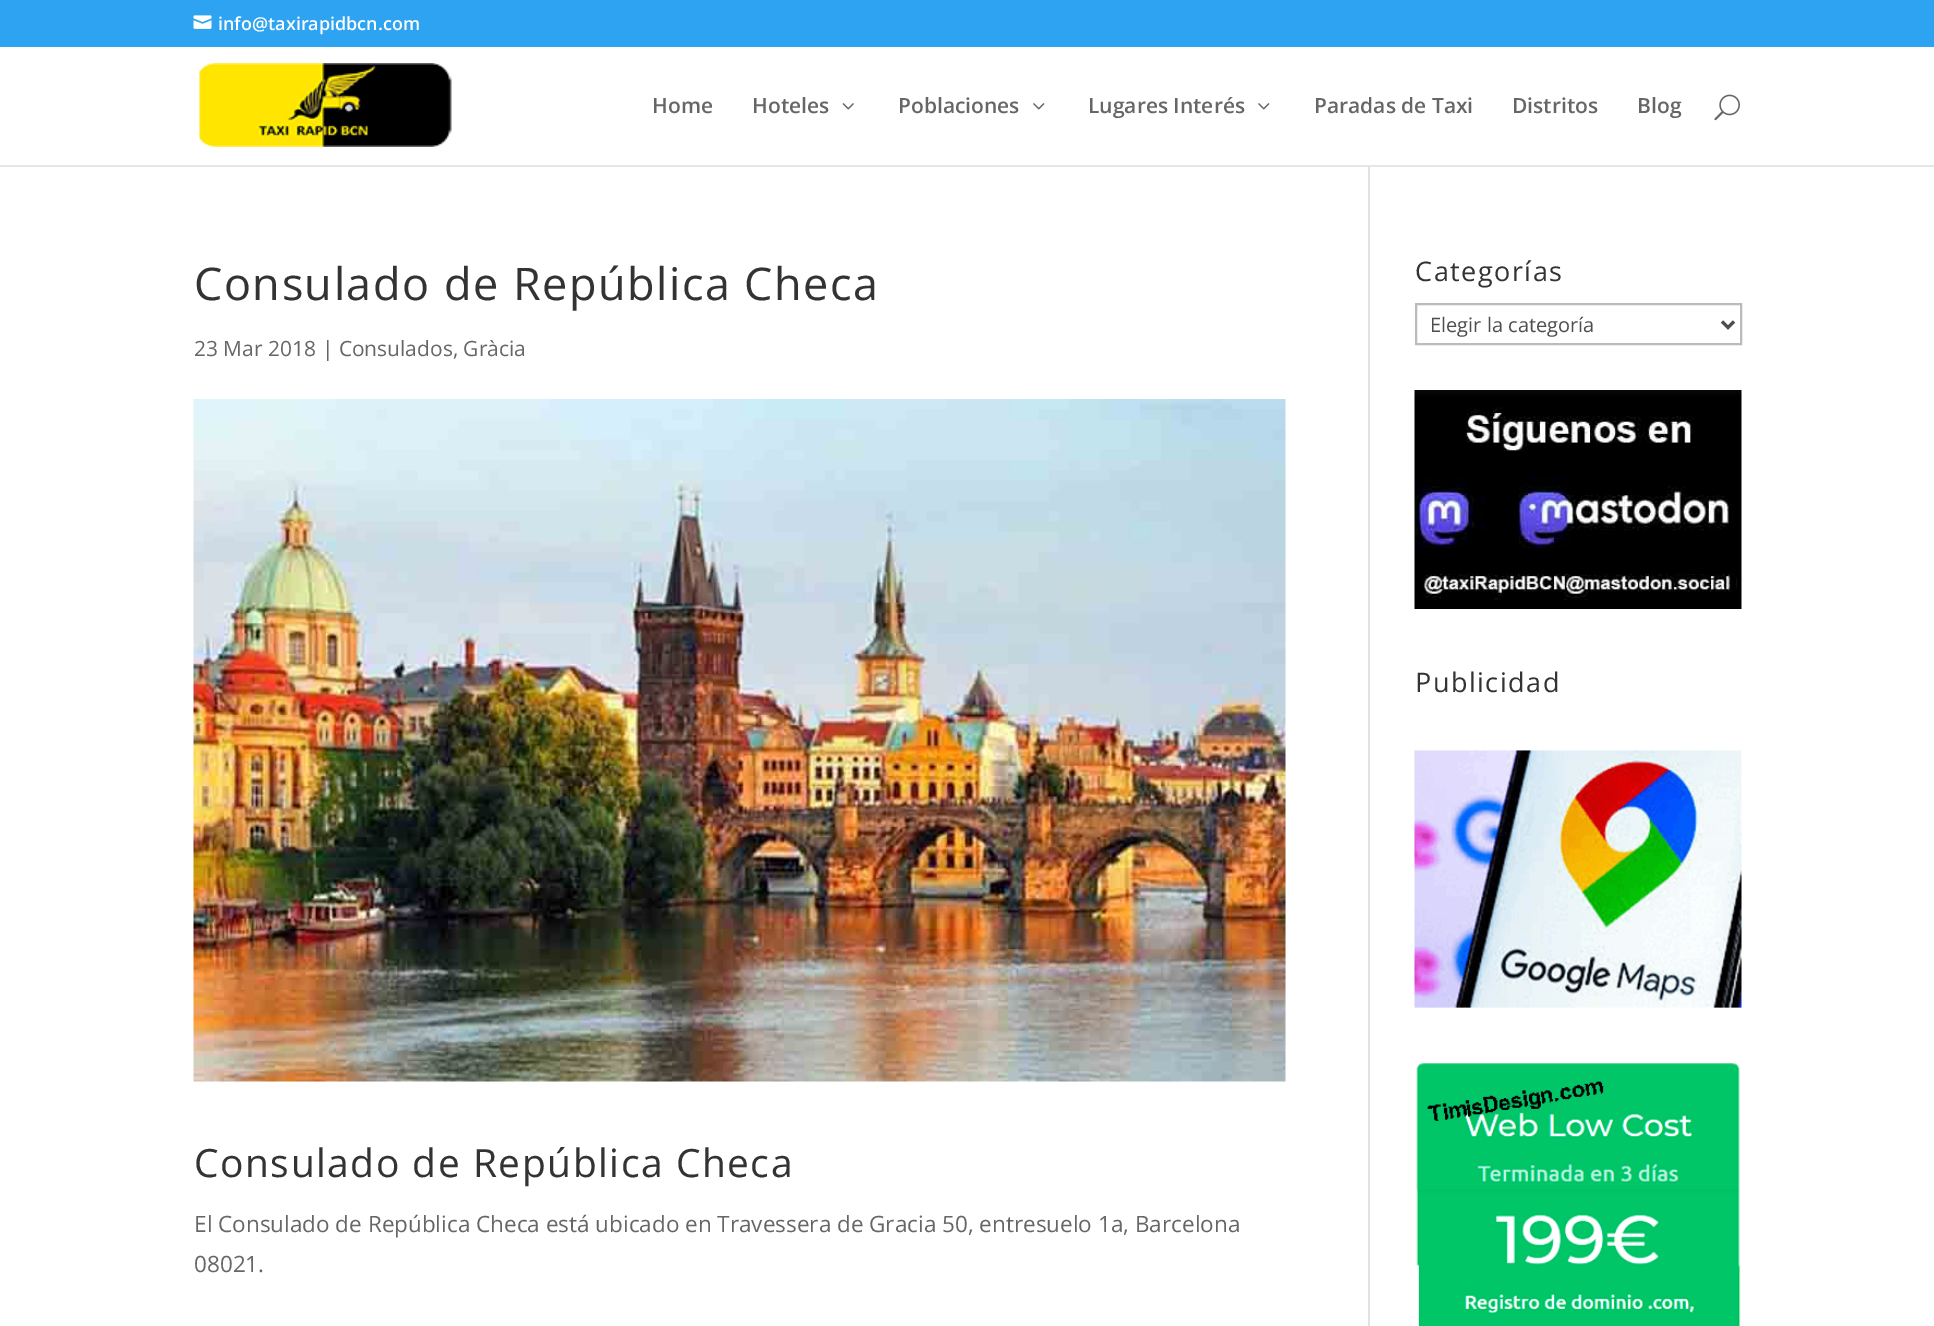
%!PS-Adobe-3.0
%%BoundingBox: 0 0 1934 1326
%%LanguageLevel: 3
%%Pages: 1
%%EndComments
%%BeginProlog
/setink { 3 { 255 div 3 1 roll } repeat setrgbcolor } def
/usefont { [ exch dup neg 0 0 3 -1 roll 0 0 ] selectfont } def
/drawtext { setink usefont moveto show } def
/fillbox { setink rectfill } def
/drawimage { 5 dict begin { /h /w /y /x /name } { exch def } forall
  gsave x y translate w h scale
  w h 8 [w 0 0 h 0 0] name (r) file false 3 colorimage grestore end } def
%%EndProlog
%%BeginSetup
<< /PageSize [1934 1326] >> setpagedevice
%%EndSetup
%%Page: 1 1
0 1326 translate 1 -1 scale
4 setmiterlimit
0 0 1934 1326 255 255 255 fillbox
0 0 1934 47 46 163 242 fillbox
(assets/img1.rgb) 193 15 19 14 drawimage
(info@taxirapidbcn.com) 218 30 /OpenSans-SemiBold 18 255 255 255 drawtext
0 165 1934 2 230 230 230 fillbox
(assets/img2.rgb) 199 63 253 84 drawimage
(Home) 652 113 /OpenSans-SemiBold 21 102 102 102 drawtext
(Hoteles) 752 113 /OpenSans-SemiBold 21 102 102 102 drawtext
(assets/img3.rgb) 842 103 12 7 drawimage
(Poblaciones) 898 113 /OpenSans-SemiBold 21 102 102 102 drawtext
(assets/img4.rgb) 1033 103 12 7 drawimage
(Lugares Interés) 1088 113 /OpenSans-SemiBold 21 102 102 102 drawtext
(assets/img4.rgb) 1258 103 12 7 drawimage
(Paradas de Taxi) 1314 113 /OpenSans-SemiBold 21 102 102 102 drawtext
(Distritos) 1512 113 /OpenSans-SemiBold 21 102 102 102 drawtext
(Blog) 1637 113 /OpenSans-SemiBold 21 102 102 102 drawtext
(assets/img5.rgb) 1714 94 26 27 drawimage
1368 167 2 1159 226 226 226 fillbox
/OpenSans-Regular 45 usefont
51 51 51 setink
194 300 moveto 1.5 0 (Consulado de República Checa) ashow
(23 Mar 2018 | Consulados, Gràcia) 194 356 /OpenSans-Regular 21 102 102 102 drawtext
(assets/img6.rgb) 193 399 1093 683 drawimage
/OpenSans-Regular 39 usefont
51 51 51 setink
194 1177 moveto 1.5 0 (Consulado de República Checa) ashow
(El Consulado de República Checa está ubicado en Travessera de Gracia 50, entresuelo 1a, Barcelona) 194 1232 /OpenSans-Regular 22.5 102 102 102 drawtext
(08021.) 194 1272 /OpenSans-Regular 22.5 102 102 102 drawtext
/OpenSans-Regular 27 usefont
51 51 51 setink
1415 281 moveto 1.5 0 (Categorías) ashow
187 187 187 setink
2 setlinewidth
1416 304 325 40 rectstroke
78 78 78 setink
3 setlinewidth
1722 321.5 moveto 1728 327.5 lineto 1734 321.5 lineto stroke
(Elegir la categoría) 1430 332 /OpenSans-Regular 20 78 78 78 drawtext
(assets/img7.rgb) 1414 390 328 219 drawimage
/OpenSans-Regular 27 usefont
51 51 51 setink
1415 692 moveto 1.5 0 (Publicidad) ashow
(assets/img8.rgb) 1414 750 328 258 drawimage
(assets/img9.rgb) 1416 1063 325 263 drawimage
showpage
%%EOF
